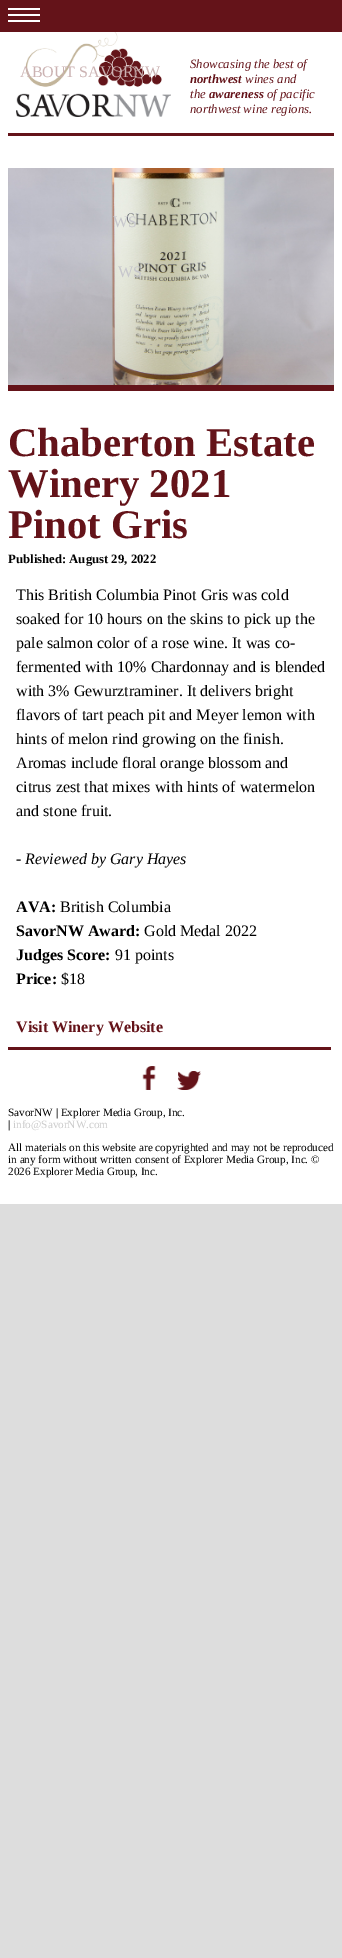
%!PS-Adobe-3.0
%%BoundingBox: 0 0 342 1958
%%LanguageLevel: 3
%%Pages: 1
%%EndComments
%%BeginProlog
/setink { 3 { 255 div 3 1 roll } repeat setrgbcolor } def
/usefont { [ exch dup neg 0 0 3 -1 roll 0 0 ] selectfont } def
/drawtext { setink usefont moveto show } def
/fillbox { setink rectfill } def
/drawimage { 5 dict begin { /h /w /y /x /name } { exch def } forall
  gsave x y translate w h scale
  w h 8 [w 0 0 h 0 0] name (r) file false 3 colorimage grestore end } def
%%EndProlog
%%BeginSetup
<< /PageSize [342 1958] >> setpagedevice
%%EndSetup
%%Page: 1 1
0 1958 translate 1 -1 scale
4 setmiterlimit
0 0 342 1958 221 221 221 fillbox
0 32 342 1172 255 255 255 fillbox
8 133 326 3 100 19 25 fillbox
(assets/img1.rgb) 16 32 155 85 drawimage
(Showcasing the best of) 190 68 /LiberationSerif-Italic 12.75 100 19 25 drawtext
(northwest) 190 83 /LiberationSerif-BoldItalic 12.75 100 19 25 drawtext
(wines and) 245 83 /LiberationSerif-Italic 12.75 100 19 25 drawtext
(the) 190 98 /LiberationSerif-Italic 12.75 100 19 25 drawtext
(awareness) 209 98 /LiberationSerif-BoldItalic 12.75 100 19 25 drawtext
(of pacific) 267 98 /LiberationSerif-Italic 12.75 100 19 25 drawtext
(northwest wine regions.) 190 113 /LiberationSerif-Italic 12.75 100 19 25 drawtext
8 385 326 6 100 19 25 fillbox
(assets/img2.rgb) 8 168 326 217 drawimage
(Chaberton Estate) 8 456 /LiberationSerif-Bold 40.75 100 19 25 drawtext
(Winery 2021) 8 497 /LiberationSerif-Bold 40.75 100 19 25 drawtext
(Pinot Gris) 8 538 /LiberationSerif-Bold 40.75 100 19 25 drawtext
(Published: August 29, 2022) 8 563 /LiberationSerif-Bold 12.75 0 0 0 drawtext
(This British Columbia Pinot Gris was cold) 16 600 /LiberationSerif-Regular 16 0 0 0 drawtext
(soaked for 10 hours on the skins to pick up the) 16 624 /LiberationSerif-Regular 16 0 0 0 drawtext
(pale salmon color of a rose wine. It was co-) 16 648 /LiberationSerif-Regular 16 0 0 0 drawtext
(fermented with 10% Chardonnay and is blended) 16 672 /LiberationSerif-Regular 16 0 0 0 drawtext
(with 3% Gewurztraminer. It delivers bright) 16 696 /LiberationSerif-Regular 16 0 0 0 drawtext
(flavors of tart peach pit and Meyer lemon with) 16 720 /LiberationSerif-Regular 16 0 0 0 drawtext
(hints of melon rind growing on the finish.) 16 744 /LiberationSerif-Regular 16 0 0 0 drawtext
(Aromas include floral orange blossom and) 16 768 /LiberationSerif-Regular 16 0 0 0 drawtext
(citrus zest that mixes with hints of watermelon) 16 792 /LiberationSerif-Regular 16 0 0 0 drawtext
(and stone fruit.) 16 816 /LiberationSerif-Regular 16 0 0 0 drawtext
(- Reviewed by Gary Hayes) 16 864 /LiberationSerif-Italic 16 0 0 0 drawtext
(AVA:) 16 912 /LiberationSerif-Bold 16 0 0 0 drawtext
(British Columbia) 60 912 /LiberationSerif-Regular 16 0 0 0 drawtext
(SavorNW Award:) 16 936 /LiberationSerif-Bold 16 0 0 0 drawtext
(Gold Medal 2022) 144 936 /LiberationSerif-Regular 16 0 0 0 drawtext
(Judges Score:) 16 960 /LiberationSerif-Bold 16 0 0 0 drawtext
(91 points) 115 960 /LiberationSerif-Regular 16 0 0 0 drawtext
(Price:) 16 984 /LiberationSerif-Bold 16 0 0 0 drawtext
($18) 61 984 /LiberationSerif-Regular 16 0 0 0 drawtext
(Visit Winery Website) 16 1032 /LiberationSerif-Bold 16 100 19 25 drawtext
0 0 342 32 100 19 25 fillbox
8 20 32 2 255 255 255 fillbox
8 14 32 2 255 255 255 fillbox
8 8 32 2 255 255 255 fillbox
(ABOUT SAVORNW) 20 77 /LiberationSerif-Regular 16 203 178 178 drawtext
(WS) 113 227 /LiberationSerif-Regular 16 198 198 204 drawtext
(WS) 118 277 /LiberationSerif-Regular 16 198 198 204 drawtext
8 1047 323 3 100 19 25 fillbox
(assets/img3.rgb) 142 1066 14 24 drawimage
(assets/img4.rgb) 177 1071 24 19 drawimage
(SavorNW | Explorer Media Group, Inc.) 8 1116 /LiberationSerif-Regular 11.2 0 0 0 drawtext
(|) 8 1128 /LiberationSerif-Regular 11.2 0 0 0 drawtext
(info@SavorNW.com) 13 1128 /LiberationSerif-Regular 11.2 204 204 204 drawtext
(All materials on this website are copyrighted and may not be reproduced) 8 1151 /LiberationSerif-Regular 11.2 0 0 0 drawtext
(in any form without written consent of Explorer Media Group, Inc. ©) 8 1163 /LiberationSerif-Regular 11.2 0 0 0 drawtext
(2026 Explorer Media Group, Inc.) 8 1175 /LiberationSerif-Regular 11.2 0 0 0 drawtext
showpage
%%EOF
